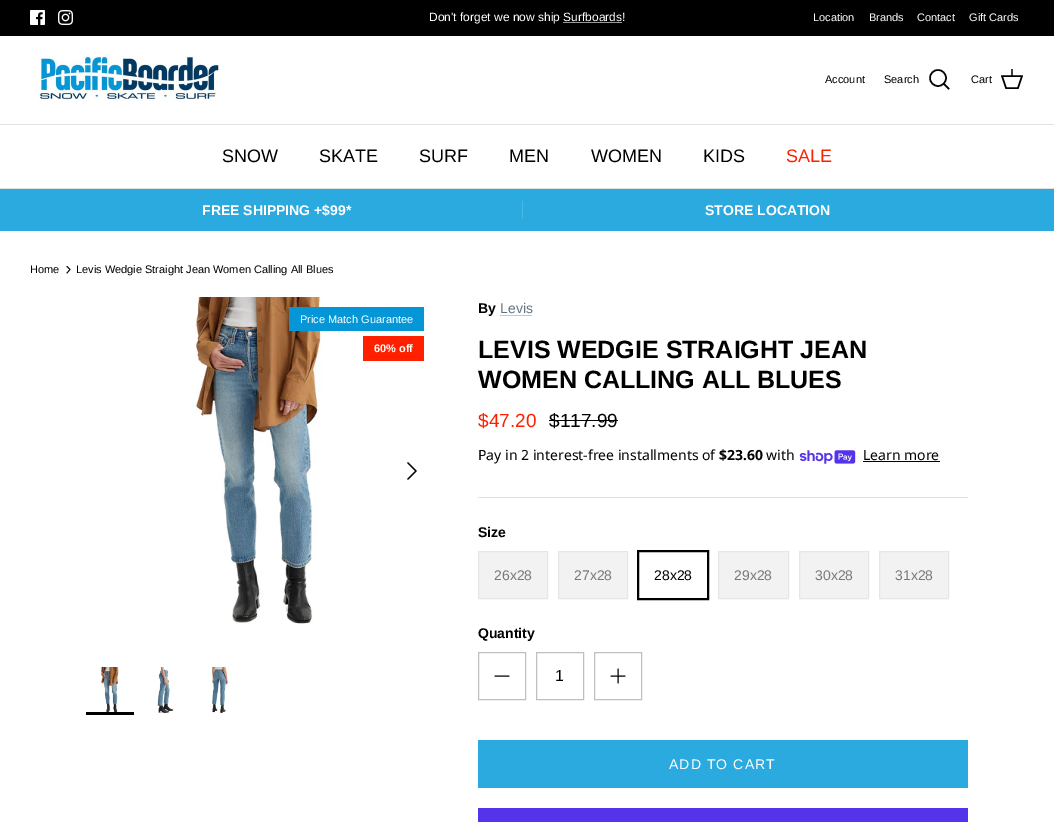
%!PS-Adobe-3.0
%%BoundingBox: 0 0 1054 822
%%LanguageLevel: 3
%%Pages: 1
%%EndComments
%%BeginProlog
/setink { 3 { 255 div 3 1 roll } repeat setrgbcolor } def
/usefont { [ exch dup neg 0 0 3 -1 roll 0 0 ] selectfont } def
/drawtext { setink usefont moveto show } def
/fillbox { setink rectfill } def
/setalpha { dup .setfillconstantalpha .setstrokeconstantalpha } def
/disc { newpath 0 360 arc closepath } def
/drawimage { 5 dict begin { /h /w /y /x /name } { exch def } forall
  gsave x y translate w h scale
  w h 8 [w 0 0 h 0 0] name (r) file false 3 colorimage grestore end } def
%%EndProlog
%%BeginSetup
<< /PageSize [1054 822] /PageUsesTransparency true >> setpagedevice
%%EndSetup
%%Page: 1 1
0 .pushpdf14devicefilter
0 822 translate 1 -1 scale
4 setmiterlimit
0 0 1054 822 255 255 255 fillbox
0 0 1054 36 0 0 0 fillbox
(assets/img1.rgb) 30 10 15 15 drawimage
(assets/img2.rgb) 58 10 15 15 drawimage
(Don't forget we now ship Surfboards!) 429 21 /LiberationSans-Regular 12 255 255 255 drawtext
563 22 59 1 153 153 153 fillbox
(Location) 813 21 /LiberationSans-Regular 11 255 255 255 drawtext
(Brands) 869 21 /LiberationSans-Regular 11 255 255 255 drawtext
(Contact) 917 21 /LiberationSans-Regular 11 255 255 255 drawtext
(Gift Cards) 969 21 /LiberationSans-Regular 11 255 255 255 drawtext
0 124 1054 1 226 226 226 fillbox
(assets/img3.rgb) 38 56 182 45 drawimage
(Account) 825 83 /LiberationSans-Regular 11 0 0 0 drawtext
(Search) 884 83 /LiberationSans-Regular 11 0 0 0 drawtext
1.5 setlinewidth
938 78 8 disc stroke
2 setlinecap
944 84 moveto 948.5 88.5 lineto stroke
(Cart) 971 83 /LiberationSans-Regular 11 0 0 0 drawtext
0 setlinecap
1002 76 moveto 1022 76 lineto 1018 88 lineto 1006 88 lineto closepath stroke
0.75 setalpha
1011 69 2 8 0 0 0 fillbox
1 setalpha
0 188 1054 1 226 226 226 fillbox
(SNOW) 222 162 /LiberationSans-Regular 18 0 0 0 drawtext
(SKATE) 319 162 /LiberationSans-Regular 18 0 0 0 drawtext
(SURF) 419 162 /LiberationSans-Regular 18 0 0 0 drawtext
(MEN) 509 162 /LiberationSans-Regular 18 0 0 0 drawtext
(WOMEN) 591 162 /LiberationSans-Regular 18 0 0 0 drawtext
(KIDS) 703 162 /LiberationSans-Regular 18 0 0 0 drawtext
(SALE) 786 162 /LiberationSans-Regular 18 255 32 0 drawtext
0 189 1054 42 43 170 223 fillbox
(FREE SHIPPING +$99*) 202 215 /LiberationSans-Bold 14 255 255 255 drawtext
522 201 1 18 75 183 228 fillbox
(STORE LOCATION) 705 215 /LiberationSans-Bold 14 255 255 255 drawtext
(Home) 30 273 /LiberationSans-Regular 11 0 0 0 drawtext
0.8 setlinewidth
1 setlinecap
1 setlinejoin
67 273 moveto 70 269.5 lineto 67 266.5 lineto stroke
(Levis Wedgie Straight Jean Women Calling All Blues) 76 273 /LiberationSans-Regular 11 0 0 0 drawtext
(assets/img4.rgb) 195 297 127 327 drawimage
289 307 135 24 5 150 215 fillbox
(Price Match Guarantee) 300 323 /LiberationSans-Regular 11 255 255 255 drawtext
363 336 61 25 255 32 0 fillbox
(60% off) 374 352 /LiberationSans-Bold 11 255 255 255 drawtext
0 0 0 setink
1.3 setlinewidth
408 479 moveto 416 471 lineto 408 463 lineto stroke
(assets/img5.rgb) 101 667 18 45 drawimage
86 712 48 3 0 0 0 fillbox
(assets/img6.rgb) 157 667 17 46 drawimage
(assets/img7.rgb) 212 667 17 46 drawimage
(By) 478 313 /LiberationSans-Bold 14 0 0 0 drawtext
(Levis) 500 313 /LiberationSans-Regular 14 99 115 129 drawtext
500 315 32 1 193 199 205 fillbox
(LEVIS WEDGIE STRAIGHT JEAN) 478 358 /LiberationSans-Bold 25 0 0 0 drawtext
(WOMEN CALLING ALL BLUES) 478 388 /LiberationSans-Bold 25 0 0 0 drawtext
($47.20) 478 427 /LiberationSans-Regular 19 255 32 0 drawtext
($117.99) 549 427 /LiberationSans-Regular 19 0 0 0 drawtext
549 420 69 1 0 0 0 fillbox
(Pay in 2 interest-free installments of) 478 460 /NotoSans-Regular 14 0 0 0 drawtext
($23.60) 719 460 /NotoSans-Bold 14 0 0 0 drawtext
(with) 766 460 /NotoSans-Regular 14 0 0 0 drawtext
(assets/img8.rgb) 799 450 57 14 drawimage
(Learn more) 863 460 /NotoSans-Regular 14 0 0 0 drawtext
863 461 77 1 0 0 0 fillbox
478 497 490 1 226 226 226 fillbox
(Size) 478 537 /LiberationSans-Bold 14 0 0 0 drawtext
242 242 242 setink
478.5 551.5 moveto 547.5 551.5 lineto 547.5 598.5 lineto 478.5 598.5 lineto closepath gsave fill grestore
230 230 230 setink
1 setlinewidth
0 setlinecap
0 setlinejoin
stroke
(26x28) 494 580 /LiberationSans-Regular 14 121 121 121 drawtext
242 242 242 setink
558.5 551.5 moveto 627.5 551.5 lineto 627.5 598.5 lineto 558.5 598.5 lineto closepath gsave fill grestore
230 230 230 setink
stroke
(27x28) 574 580 /LiberationSans-Regular 14 121 121 121 drawtext
0 0 0 setink
637.5 550.5 71 49 rectstroke
638.5 551.5 69 47 rectstroke
(28x28) 654 580 /LiberationSans-Regular 14 0 0 0 drawtext
242 242 242 setink
718.5 551.5 moveto 788.5 551.5 lineto 788.5 598.5 lineto 718.5 598.5 lineto closepath gsave fill grestore
230 230 230 setink
stroke
(29x28) 734 580 /LiberationSans-Regular 14 121 121 121 drawtext
242 242 242 setink
799.5 551.5 moveto 868.5 551.5 lineto 868.5 598.5 lineto 799.5 598.5 lineto closepath gsave fill grestore
230 230 230 setink
stroke
(30x28) 815 580 /LiberationSans-Regular 14 121 121 121 drawtext
242 242 242 setink
879.5 551.5 moveto 948.5 551.5 lineto 948.5 598.5 lineto 879.5 598.5 lineto closepath gsave fill grestore
230 230 230 setink
stroke
(31x28) 895 580 /LiberationSans-Regular 14 121 121 121 drawtext
(Quantity) 478 638 /LiberationSans-Bold 14 0 0 0 drawtext
191 191 191 setink
478.5 652.5 47 47 rectstroke
0 0 0 setink
1 setlinecap
1 setlinejoin
495 676 moveto 509 676 lineto stroke
191 191 191 setink
0 setlinecap
0 setlinejoin
536.5 652.5 47 47 rectstroke
(1) 555 681 /LiberationSans-Regular 16 0 0 0 drawtext
191 191 191 setink
594.5 652.5 47 47 rectstroke
0 0 0 setink
1 setlinecap
1 setlinejoin
618 669 moveto 618 683 lineto 611 676 moveto 625 676 lineto stroke
478 740 490 48 43 170 223 fillbox
/LiberationSans-Regular 14 usefont
255 255 255 setink
669 769 moveto 1.1 0 (ADD TO CART) ashow
478 808 490 14 84 51 235 fillbox
.poppdf14devicefilter showpage
%%EOF
